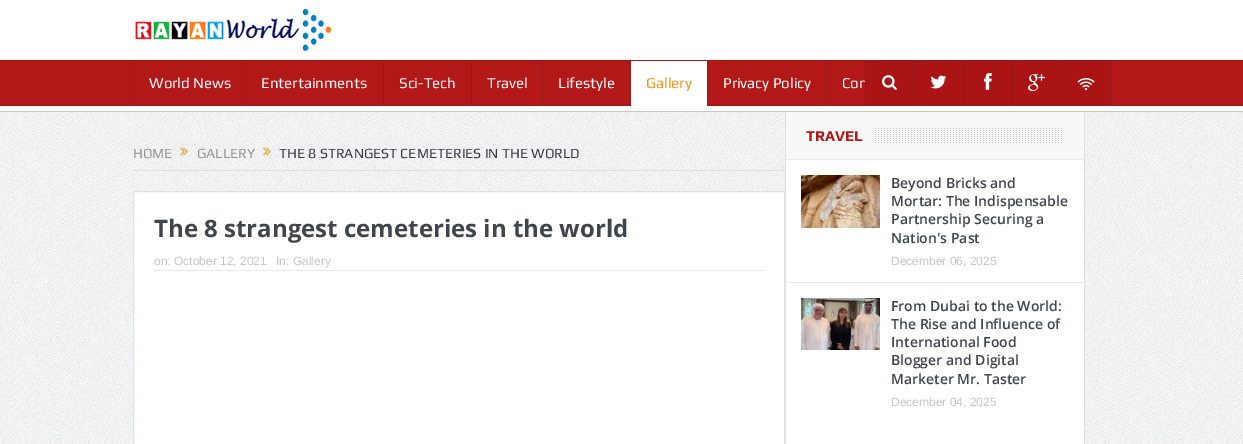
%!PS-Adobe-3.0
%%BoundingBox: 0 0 1243 444
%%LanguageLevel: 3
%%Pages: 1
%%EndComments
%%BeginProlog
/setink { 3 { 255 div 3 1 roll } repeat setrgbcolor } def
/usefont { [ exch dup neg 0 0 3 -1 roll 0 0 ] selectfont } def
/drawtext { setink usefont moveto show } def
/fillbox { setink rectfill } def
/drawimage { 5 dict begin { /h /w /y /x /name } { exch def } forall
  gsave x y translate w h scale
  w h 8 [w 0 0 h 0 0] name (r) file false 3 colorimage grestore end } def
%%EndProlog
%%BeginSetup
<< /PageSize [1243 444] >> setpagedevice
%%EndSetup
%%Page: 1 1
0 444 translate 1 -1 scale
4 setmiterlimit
0 0 1243 444 255 255 255 fillbox
(assets/img1.rgb) 0 112 1243 332 drawimage
(assets/img2.rgb) 135 8 197 44 drawimage
0 60 1243 1 154 24 24 fillbox
0 111 1243 1 200 200 200 fillbox
0 61 1243 44 179 24 24 fillbox
0 105 1243 1 154 24 24 fillbox
133 61 1 44 154 24 24 fillbox
(World News) 149 88 /Play-Regular 15 255 255 255 drawtext
245 61 1 44 154 24 24 fillbox
(Entertainments) 261 88 /Play-Regular 15 255 255 255 drawtext
383 61 1 44 154 24 24 fillbox
(Sci-Tech) 399 88 /Play-Regular 15 255 255 255 drawtext
471 61 1 44 154 24 24 fillbox
(Travel) 487 88 /Play-Regular 15 255 255 255 drawtext
542 61 1 44 154 24 24 fillbox
(Lifestyle) 558 88 /Play-Regular 15 255 255 255 drawtext
630 61 1 44 154 24 24 fillbox
631 61 76 45 255 255 255 fillbox
(Gallery) 646 88 /Play-Regular 15 240 146 23 drawtext
707 61 1 44 154 24 24 fillbox
(Privacy Policy) 723 88 /Play-Regular 15 255 255 255 drawtext
826 61 1 44 154 24 24 fillbox
(Con) 842 88 /Play-Regular 15 255 255 255 drawtext
866 61 48 44 171 20 20 fillbox
914 61 1 44 154 24 24 fillbox
865 61 1 44 154 24 24 fillbox
(assets/img3.rgb) 882 75 15 15 drawimage
915 61 48 44 171 20 20 fillbox
963 61 1 44 154 24 24 fillbox
(assets/img4.rgb) 930 75 17 14 drawimage
964 61 48 44 171 20 20 fillbox
1012 61 1 44 154 24 24 fillbox
(assets/img5.rgb) 984 73 8 17 drawimage
1013 61 48 44 171 20 20 fillbox
1061 61 1 44 154 24 24 fillbox
(assets/img6.rgb) 1028 74 17 17 drawimage
1062 61 48 44 171 20 20 fillbox
1110 61 1 44 154 24 24 fillbox
(assets/img7.rgb) 1077 78 18 13 drawimage
133 170 652 1 224 224 224 fillbox
(HOME) 133 158 /Play-Regular 14 149 149 149 drawtext
(assets/img8.rgb) 180 147 8 9 drawimage
(GALLERY) 197 158 /Play-Regular 14 149 149 149 drawtext
(assets/img9.rgb) 263 147 8 9 drawimage
(THE 8 STRANGEST CEMETERIES IN THE WORLD) 279 158 /Play-Regular 14 55 60 67 drawtext
255 255 255 setink
133.5 191.5 moveto 784.5 191.5 lineto 784.5 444.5 lineto 133.5 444.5 lineto closepath gsave fill grestore
224 224 224 setink
stroke
(The 8 strangest cemeteries in the world) 154 237 /OpenSans-Bold 24 64 69 77 drawtext
154 270 610 1 234 234 234 fillbox
(on: October 12, 2021) 154 265 /LiberationSans-Regular 12 198 198 198 drawtext
(In: Gallery) 276 265 /LiberationSans-Regular 12 198 198 198 drawtext
786 160 298 284 255 255 255 fillbox
1084 112 1 332 224 224 224 fillbox
785 112 1 332 224 224 224 fillbox
786 112 298 47 248 248 248 fillbox
786 159 298 1 234 234 234 fillbox
(assets/img10.rgb) 875 128 187 15 drawimage
(TRAVEL) 806 141 /Play-Bold 15 179 24 24 drawtext
786 282 298 1 234 234 234 fillbox
(assets/img11.rgb) 801 175 79 53 drawimage
(Beyond Bricks and) 891 188 /OpenSans-SemiBold 14 64 69 77 drawtext
(Mortar: The Indispensable) 891 206 /OpenSans-SemiBold 14 64 69 77 drawtext
(Partnership Securing a) 891 224 /OpenSans-SemiBold 14 64 69 77 drawtext
(Nation's Past) 891 243 /OpenSans-SemiBold 14 64 69 77 drawtext
(December 06, 2025) 891 265 /LiberationSans-Regular 12 198 198 198 drawtext
(assets/img12.rgb) 801 298 79 52 drawimage
(From Dubai to the World:) 891 311 /OpenSans-SemiBold 14 64 69 77 drawtext
(The Rise and Influence of) 891 329 /OpenSans-SemiBold 14 64 69 77 drawtext
(International Food) 891 347 /OpenSans-SemiBold 14 64 69 77 drawtext
(Blogger and Digital) 891 365 /OpenSans-SemiBold 14 64 69 77 drawtext
(Marketer Mr. Taster) 891 384 /OpenSans-SemiBold 14 64 69 77 drawtext
(December 04, 2025) 891 406 /LiberationSans-Regular 12 198 198 198 drawtext
showpage
%%EOF
